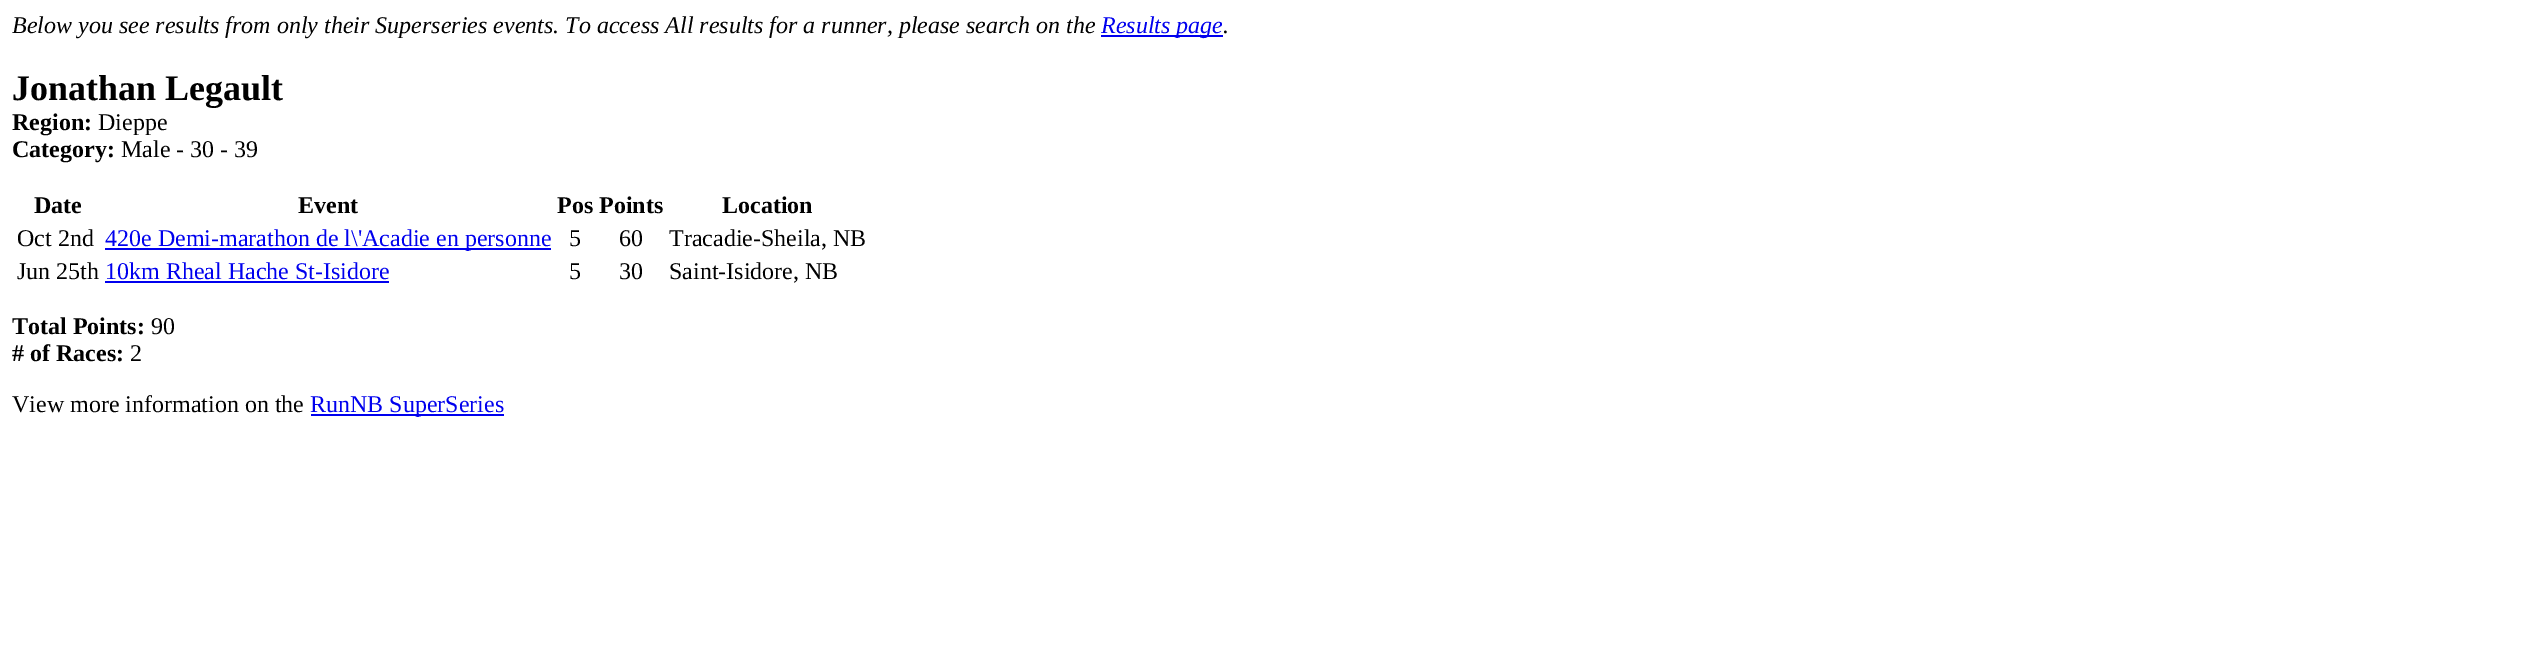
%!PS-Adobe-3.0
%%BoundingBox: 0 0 2521 650
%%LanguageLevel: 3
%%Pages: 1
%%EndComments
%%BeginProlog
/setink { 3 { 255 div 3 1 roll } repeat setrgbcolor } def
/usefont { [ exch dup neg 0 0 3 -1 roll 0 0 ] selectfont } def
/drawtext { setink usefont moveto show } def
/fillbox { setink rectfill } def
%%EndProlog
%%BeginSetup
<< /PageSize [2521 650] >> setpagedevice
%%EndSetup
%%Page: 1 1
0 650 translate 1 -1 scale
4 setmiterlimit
0 0 2521 650 255 255 255 fillbox
(Below you see results from only their Superseries events. To access All results for a runner, please search on the) 12 33 /LiberationSerif-Italic 24 0 0 0 drawtext
1101 35 122 2 0 0 238 fillbox
(Results page) 1101 33 /LiberationSerif-Italic 24 0 0 238 drawtext
(.) 1223 33 /LiberationSerif-Italic 24 0 0 0 drawtext
(Jonathan Legault) 12 100 /LiberationSerif-Bold 36 0 0 0 drawtext
(Region:) 12 130 /LiberationSerif-Bold 24 0 0 0 drawtext
(Dieppe) 98 130 /LiberationSerif-Regular 24 0 0 0 drawtext
(Category:) 12 157 /LiberationSerif-Bold 24 0 0 0 drawtext
(Male - 30 - 39) 121 157 /LiberationSerif-Regular 24 0 0 0 drawtext
(Date) 34 213 /LiberationSerif-Bold 24 0 0 0 drawtext
(Event) 298 213 /LiberationSerif-Bold 24 0 0 0 drawtext
(Pos Points) 557 213 /LiberationSerif-Bold 24 0 0 0 drawtext
(Location) 722 213 /LiberationSerif-Bold 24 0 0 0 drawtext
(Oct 2nd) 17 246 /LiberationSerif-Regular 24 0 0 0 drawtext
105 248 446 2 0 0 238 fillbox
(420e Demi-marathon de l\\'Acadie en personne) 105 246 /LiberationSerif-Regular 24 0 0 238 drawtext
(5) 569 246 /LiberationSerif-Regular 24 0 0 0 drawtext
(60) 619 246 /LiberationSerif-Regular 24 0 0 0 drawtext
(Tracadie-Sheila, NB) 669 246 /LiberationSerif-Regular 24 0 0 0 drawtext
(Jun 25th) 17 279 /LiberationSerif-Regular 24 0 0 0 drawtext
(10km Rheal Hache St-Isidore) 105 279 /LiberationSerif-Regular 24 0 0 238 drawtext
105 281 284 2 0 0 238 fillbox
(5) 569 279 /LiberationSerif-Regular 24 0 0 0 drawtext
(30) 619 279 /LiberationSerif-Regular 24 0 0 0 drawtext
(Saint-Isidore, NB) 669 279 /LiberationSerif-Regular 24 0 0 0 drawtext
(Total Points:) 12 334 /LiberationSerif-Bold 24 0 0 0 drawtext
(90) 151 334 /LiberationSerif-Regular 24 0 0 0 drawtext
(# of Races:) 12 361 /LiberationSerif-Bold 24 0 0 0 drawtext
(2) 130 361 /LiberationSerif-Regular 24 0 0 0 drawtext
(View more information on the) 12 412 /LiberationSerif-Regular 24 0 0 0 drawtext
311 414 193 2 0 0 238 fillbox
(RunNB SuperSeries) 310 412 /LiberationSerif-Regular 24 0 0 238 drawtext
showpage
%%EOF
